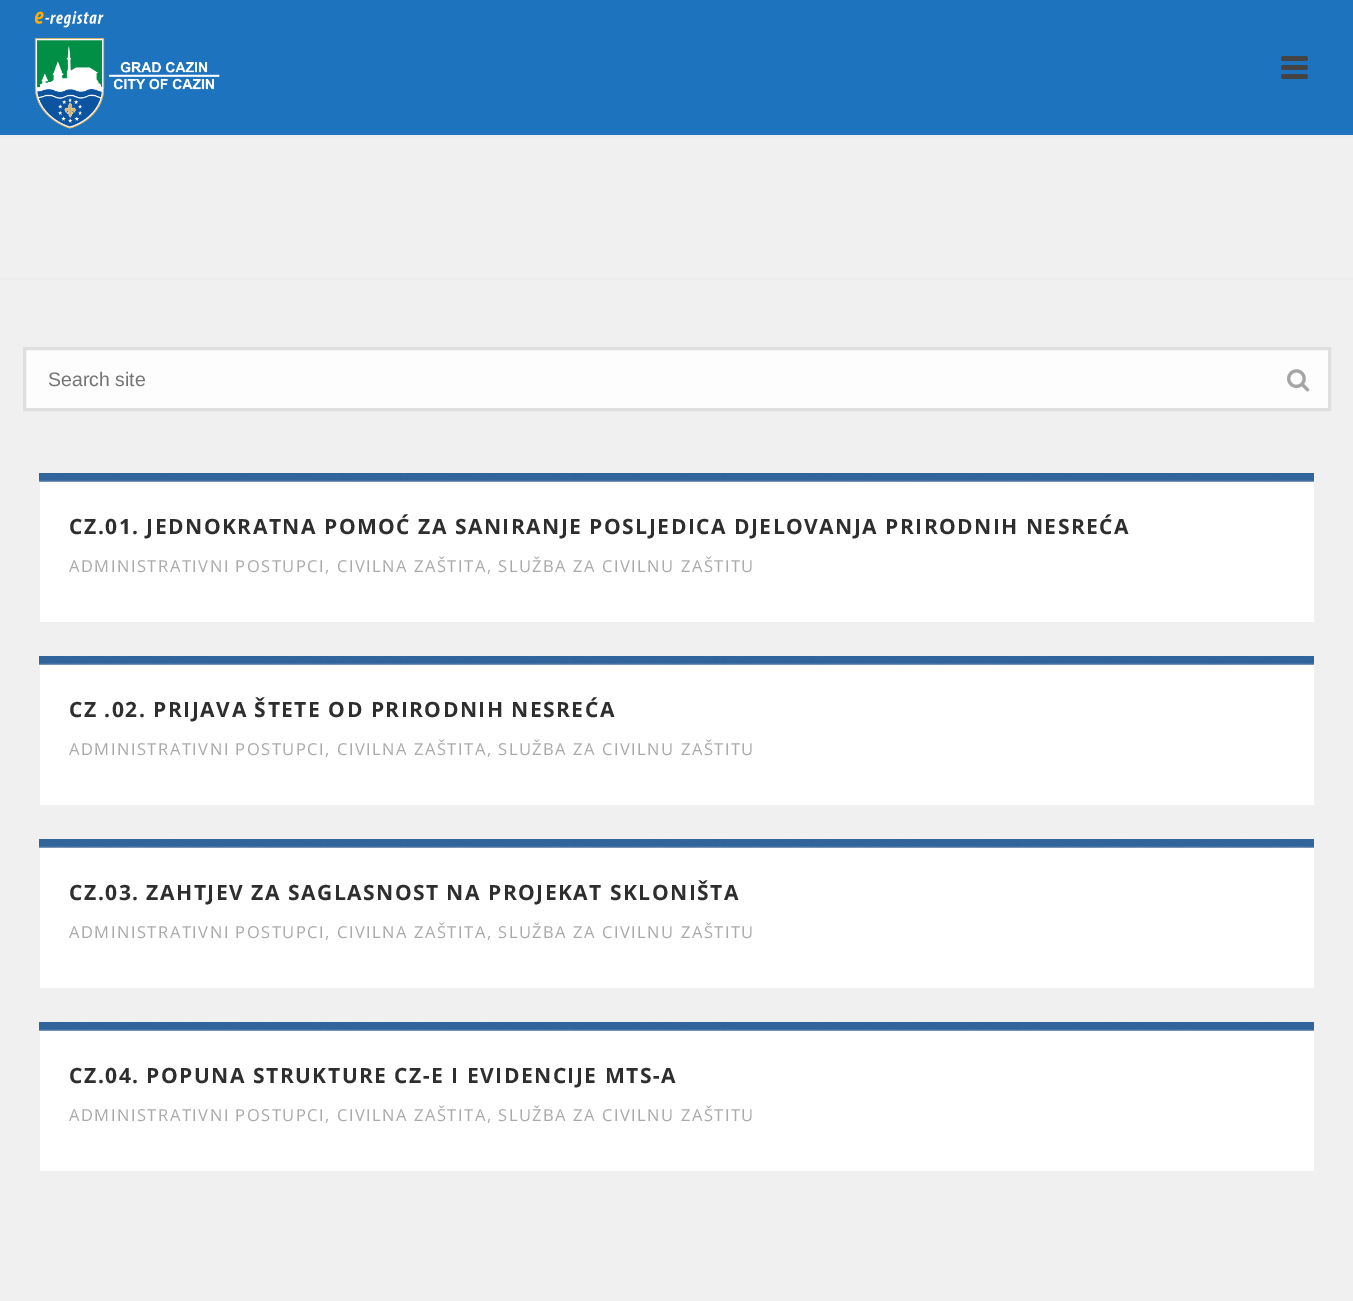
%!PS-Adobe-3.0
%%BoundingBox: 0 0 1353 1301
%%LanguageLevel: 3
%%Pages: 1
%%EndComments
%%BeginProlog
/setink { 3 { 255 div 3 1 roll } repeat setrgbcolor } def
/usefont { [ exch dup neg 0 0 3 -1 roll 0 0 ] selectfont } def
/drawtext { setink usefont moveto show } def
/fillbox { setink rectfill } def
/rrect { 5 dict begin { /r /h /w /y /x } { exch def } forall
  x r add y moveto x w add y 2 copy h add r arct x w add y h add x 1 index r arct
  x y h add x y r arct x y 2 copy exch w add exch r arct closepath end } def
/drawimage { 5 dict begin { /h /w /y /x /name } { exch def } forall
  gsave x y translate w h scale
  w h 8 [w 0 0 h 0 0] name (r) file false 3 colorimage grestore end } def
%%EndProlog
%%BeginSetup
<< /PageSize [1353 1301] >> setpagedevice
%%EndSetup
%%Page: 1 1
0 1301 translate 1 -1 scale
4 setmiterlimit
0 0 1353 1301 240 240 240 fillbox
0 278 1353 2 237 237 237 fillbox
0 135 1353 2 237 237 237 fillbox
0 0 1353 135 30 115 190 fillbox
(assets/img1.rgb) 34 10 186 119 drawimage
68 68 68 setink
1281 56 27 5 2.5 rrect fill
1281 65 27 5 2.5 rrect fill
1281 74 27 5 2.5 rrect fill
253 253 253 setink
24.5 348.5 moveto 1329.5 348.5 lineto 1329.5 409.5 lineto 24.5 409.5 lineto closepath gsave fill grestore
223 223 223 setink
3 setlinewidth
stroke
(Search site) 48 386 /LiberationSans-Regular 19.5 117 117 117 drawtext
(assets/img2.rgb) 1287 369 23 23 drawimage
40 482 1274 140 255 255 255 fillbox
39 480 1275 2 224 224 224 fillbox
(assets/img3.rgb) 39 473 1275 9 drawimage
/OpenSans-Bold 21 usefont
46 46 46 setink
69 534 moveto 1.5 0 (CZ.01. JEDNOKRATNA POMOĆ ZA SANIRANJE POSLJEDICA DJELOVANJA PRIRODNIH NESREĆA) ashow
/OpenSans-Regular 16.5 usefont
170 170 170 setink
69 572 moveto 1.5 0 (ADMINISTRATIVNI POSTUPCI, CIVILNA ZAŠTITA, SLUŽBA ZA CIVILNU ZAŠTITU) ashow
40 665 1274 140 255 255 255 fillbox
39 663 1275 2 224 224 224 fillbox
(assets/img3.rgb) 39 656 1275 9 drawimage
/OpenSans-Bold 21 usefont
46 46 46 setink
69 717 moveto 1.5 0 (CZ .02. PRIJAVA ŠTETE OD PRIRODNIH NESREĆA) ashow
/OpenSans-Regular 16.5 usefont
170 170 170 setink
69 755 moveto 1.5 0 (ADMINISTRATIVNI POSTUPCI, CIVILNA ZAŠTITA, SLUŽBA ZA CIVILNU ZAŠTITU) ashow
40 848 1274 140 255 255 255 fillbox
39 846 1275 2 224 224 224 fillbox
(assets/img3.rgb) 39 839 1275 9 drawimage
/OpenSans-Bold 21 usefont
46 46 46 setink
69 900 moveto 1.5 0 (CZ.03. ZAHTJEV ZA SAGLASNOST NA PROJEKAT SKLONIŠTA) ashow
/OpenSans-Regular 16.5 usefont
170 170 170 setink
69 938 moveto 1.5 0 (ADMINISTRATIVNI POSTUPCI, CIVILNA ZAŠTITA, SLUŽBA ZA CIVILNU ZAŠTITU) ashow
40 1031 1274 140 255 255 255 fillbox
39 1029 1275 2 224 224 224 fillbox
(assets/img3.rgb) 39 1022 1275 9 drawimage
/OpenSans-Bold 21 usefont
46 46 46 setink
69 1083 moveto 1.5 0 (CZ.04. POPUNA STRUKTURE CZ-E I EVIDENCIJE MTS-A) ashow
/OpenSans-Regular 16.5 usefont
170 170 170 setink
69 1121 moveto 1.5 0 (ADMINISTRATIVNI POSTUPCI, CIVILNA ZAŠTITA, SLUŽBA ZA CIVILNU ZAŠTITU) ashow
showpage
%%EOF
